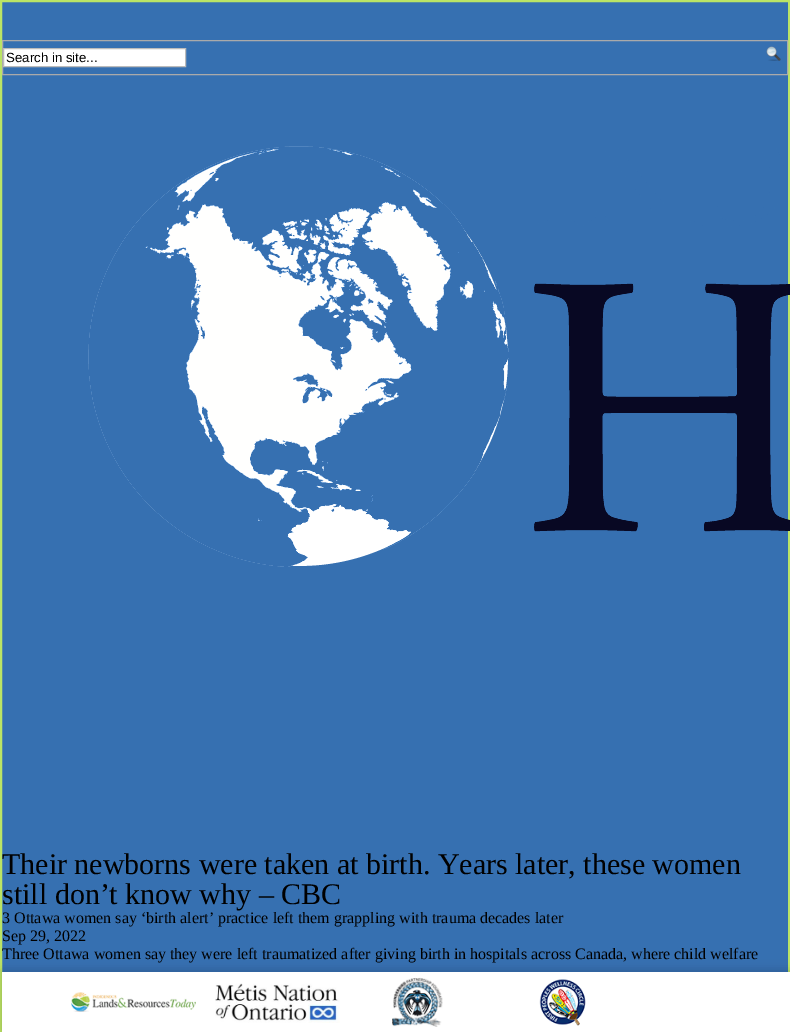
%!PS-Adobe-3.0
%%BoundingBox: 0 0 790 1032
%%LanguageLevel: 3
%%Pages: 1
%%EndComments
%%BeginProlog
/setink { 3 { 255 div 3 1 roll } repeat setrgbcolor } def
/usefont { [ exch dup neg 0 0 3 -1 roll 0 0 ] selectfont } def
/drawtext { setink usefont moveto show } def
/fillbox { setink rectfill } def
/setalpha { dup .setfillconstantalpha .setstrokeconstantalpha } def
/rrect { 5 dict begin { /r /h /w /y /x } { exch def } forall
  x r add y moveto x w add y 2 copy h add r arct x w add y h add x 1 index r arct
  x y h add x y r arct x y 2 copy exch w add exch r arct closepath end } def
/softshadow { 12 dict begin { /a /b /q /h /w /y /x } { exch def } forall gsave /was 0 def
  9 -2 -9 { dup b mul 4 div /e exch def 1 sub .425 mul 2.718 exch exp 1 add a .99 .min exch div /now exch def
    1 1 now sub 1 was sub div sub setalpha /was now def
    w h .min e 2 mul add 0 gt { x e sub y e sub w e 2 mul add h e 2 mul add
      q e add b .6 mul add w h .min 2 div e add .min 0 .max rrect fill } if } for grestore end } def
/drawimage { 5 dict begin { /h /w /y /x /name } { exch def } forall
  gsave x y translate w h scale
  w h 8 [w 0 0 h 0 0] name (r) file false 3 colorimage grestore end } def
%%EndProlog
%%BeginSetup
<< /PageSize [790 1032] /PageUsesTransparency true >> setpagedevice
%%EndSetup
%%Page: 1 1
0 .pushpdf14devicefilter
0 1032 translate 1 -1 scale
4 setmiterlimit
0 0 790 1032 54 112 177 fillbox
187 228 101 setink
2 setlinewidth
1 1 788 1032 rectstroke
170 170 170 setink
1 setlinewidth
2.5 40.5 785 34 rectstroke
255 255 255 setink
3.5 48.5 moveto 185.5 48.5 lineto 185.5 66.5 lineto 3.5 66.5 lineto closepath gsave fill grestore
187 187 187 setink
stroke
(Search in site...) 6 62 /LiberationSans-Regular 13.25 0 0 0 drawtext
(assets/img1.rgb) 766 46 15 15 drawimage
(assets/img2.rgb) 88 146 702 421 drawimage
(Their newborns were taken at birth. Years later, these women) 2 874 /LiberationSerif-Regular 30 0 0 0 drawtext
(still don’t know why – CBC) 2 904 /LiberationSerif-Regular 30 0 0 0 drawtext
(3 Ottawa women say ‘birth alert’ practice left them grappling with trauma decades later) 2 923 /LiberationSerif-Regular 16 0 0 0 drawtext
(Sep 29, 2022) 2 941 /LiberationSerif-Regular 16 0 0 0 drawtext
(Three Ottawa women say they were left traumatized after giving birth in hospitals across Canada, where child welfare) 2 959 /LiberationSerif-Regular 16 0 0 0 drawtext
2 971 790 60 0 5 0.2 softshadow
2 972 788 60 255 255 255 fillbox
(assets/img3.rgb) 71 992 125 20 drawimage
(assets/img4.rgb) 215 983 125 40 drawimage
(assets/img5.rgb) 392 977 51 50 drawimage
(assets/img6.rgb) 539 979 47 47 drawimage
.poppdf14devicefilter showpage
%%EOF
